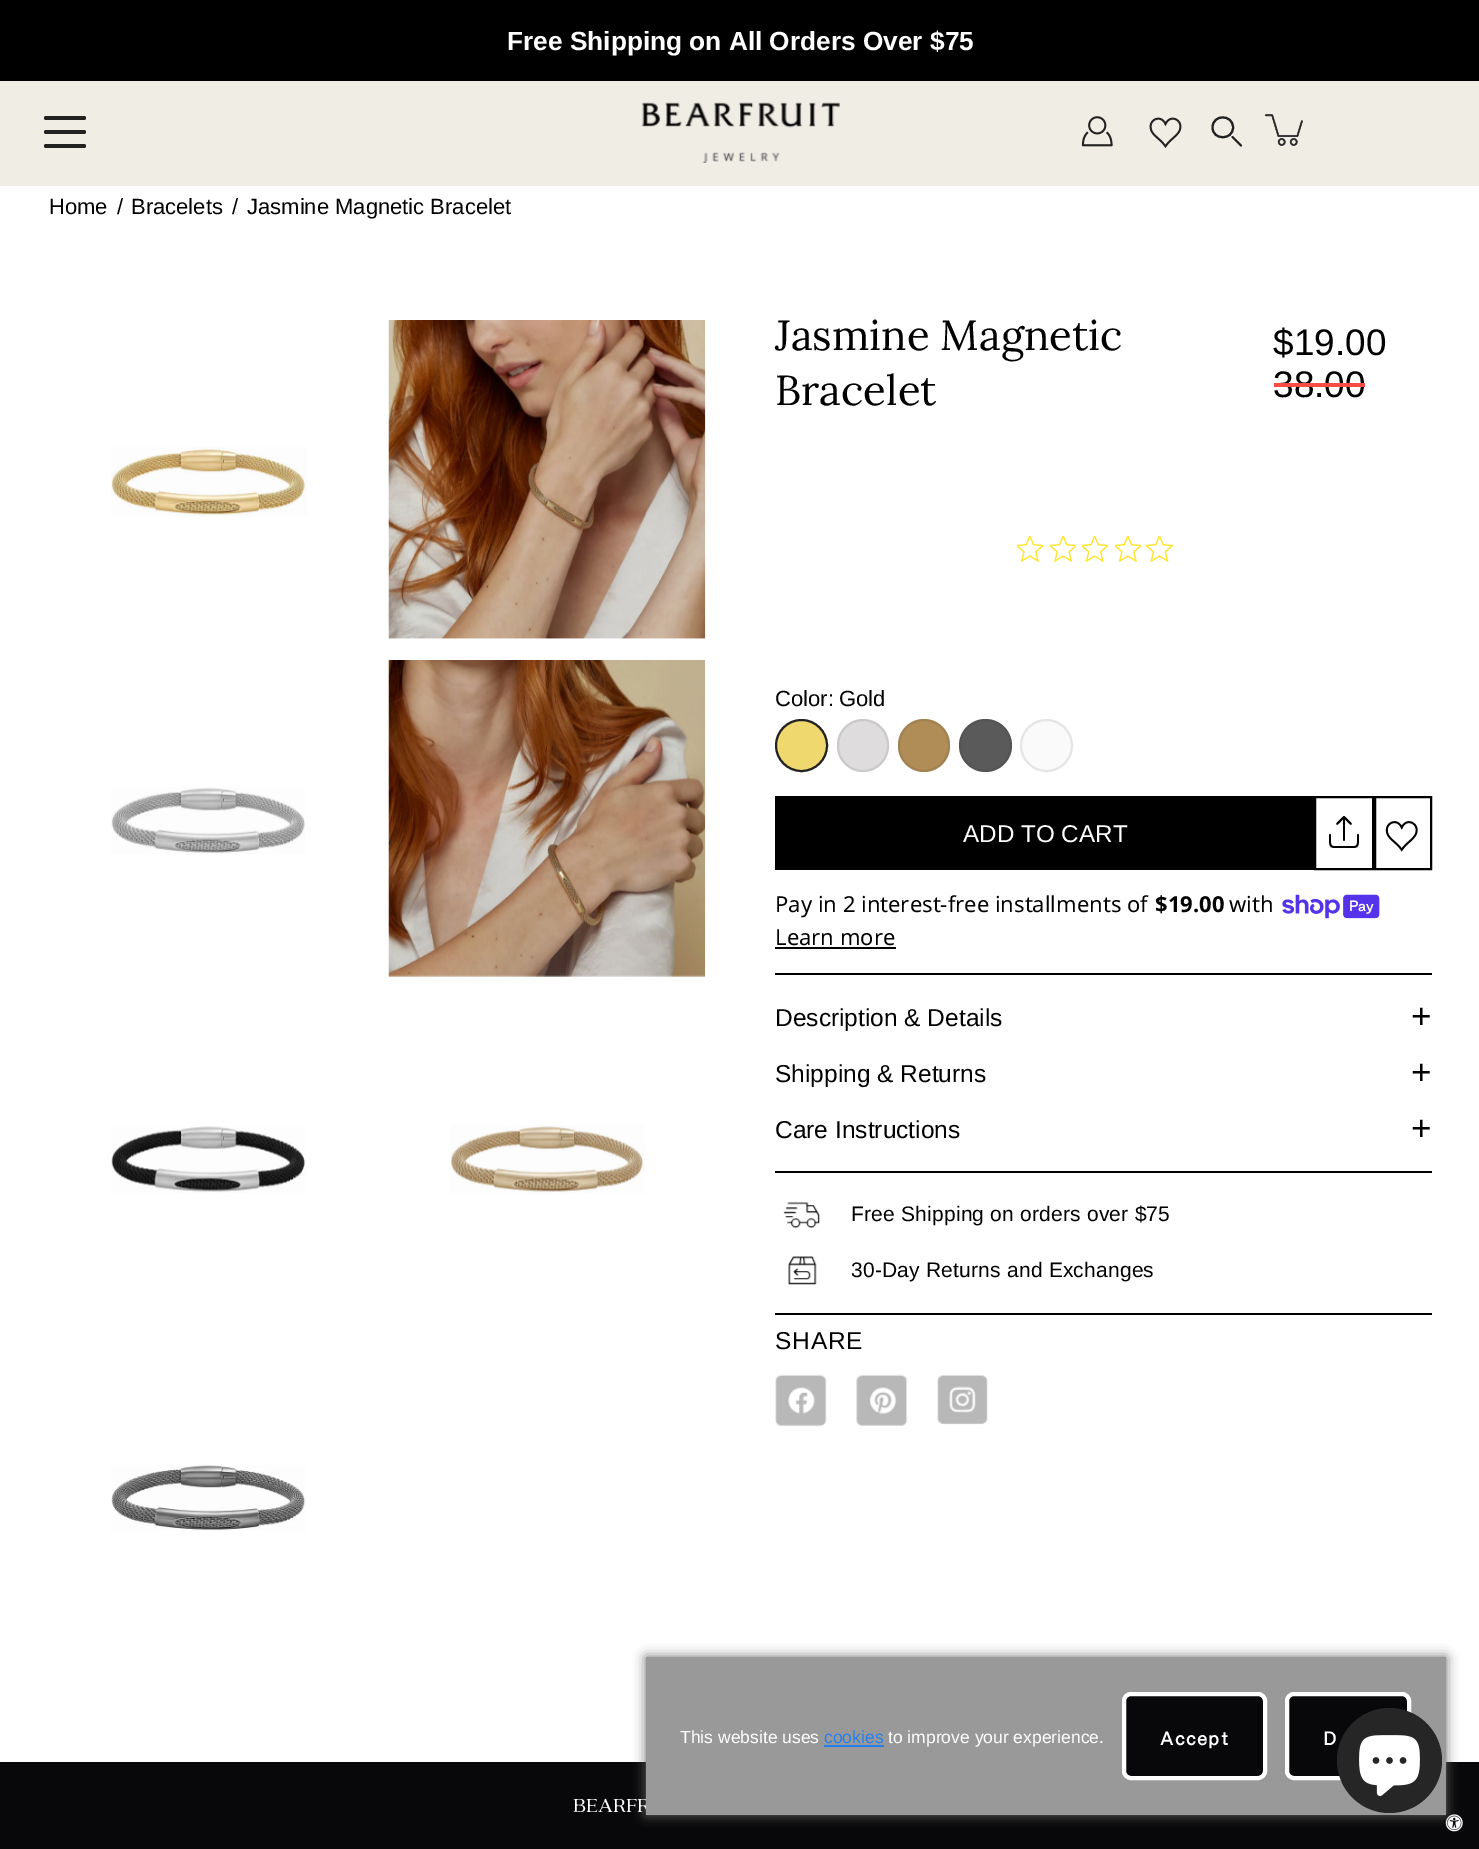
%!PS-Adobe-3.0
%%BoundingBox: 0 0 1479 1849
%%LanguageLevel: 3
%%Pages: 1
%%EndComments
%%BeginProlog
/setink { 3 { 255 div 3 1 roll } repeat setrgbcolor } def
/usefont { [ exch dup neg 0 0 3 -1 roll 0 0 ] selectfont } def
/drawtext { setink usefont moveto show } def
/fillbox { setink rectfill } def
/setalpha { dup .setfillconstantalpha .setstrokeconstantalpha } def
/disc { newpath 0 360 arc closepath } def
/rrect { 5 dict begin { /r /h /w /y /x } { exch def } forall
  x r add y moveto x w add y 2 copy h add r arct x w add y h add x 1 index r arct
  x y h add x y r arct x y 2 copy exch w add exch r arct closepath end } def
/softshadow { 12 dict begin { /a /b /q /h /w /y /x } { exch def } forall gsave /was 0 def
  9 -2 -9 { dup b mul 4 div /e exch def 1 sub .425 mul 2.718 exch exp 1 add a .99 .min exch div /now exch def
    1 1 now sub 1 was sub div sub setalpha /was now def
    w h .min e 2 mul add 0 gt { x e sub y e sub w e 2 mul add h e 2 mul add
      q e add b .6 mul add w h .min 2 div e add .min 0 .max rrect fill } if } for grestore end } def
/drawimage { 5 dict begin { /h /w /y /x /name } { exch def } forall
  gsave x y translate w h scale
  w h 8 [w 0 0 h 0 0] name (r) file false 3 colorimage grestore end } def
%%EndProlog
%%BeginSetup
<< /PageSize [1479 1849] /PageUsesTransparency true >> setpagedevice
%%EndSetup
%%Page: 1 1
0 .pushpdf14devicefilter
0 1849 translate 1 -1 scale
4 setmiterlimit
0 0 1479 1849 255 255 255 fillbox
0 0 1479 81 0 0 0 fillbox
(Free Shipping on All Orders Over $75) 507 50 /LiberationSans-Bold 26.25 255 255 255 drawtext
0 81 1479 105 240 237 229 fillbox
(assets/img1.rgb) 641 102 199 61 drawimage
34 34 34 setink
44 130 42 4 2 rrect fill
44 116 42 4 2 rrect fill
44 144 42 4 2 rrect fill
(assets/img2.rgb) 1081 116 32 31 drawimage
(assets/img3.rgb) 1149 117 33 31 drawimage
2.1 setlinewidth
1233 127.5 moveto 1233 140.5 1212.5 140.5 1212.5 127.5 curveto 1212.5 114 1233 114 1233 127.5 curveto closepath stroke
1 setlinecap
1232.5 137 moveto 1241 145.5 lineto stroke
(assets/img4.rgb) 1264 114 39 32 drawimage
(Home) 49 214 /LiberationSans-Regular 22 0 0 0 drawtext
(/) 117 214 /LiberationSans-Regular 22 0 0 0 drawtext
(Bracelets) 131 214 /LiberationSans-Regular 22 0 0 0 drawtext
(/) 232 214 /LiberationSans-Regular 22 0 0 0 drawtext
(Jasmine Magnetic Bracelet) 247 214 /LiberationSans-Regular 22 0 0 0 drawtext
(assets/img5.rgb) 111 447 196 70 drawimage
(assets/img6.rgb) 388 320 318 319 drawimage
(assets/img7.rgb) 111 787 194 67 drawimage
(assets/img8.rgb) 388 660 318 317 drawimage
(assets/img9.rgb) 111 1126 195 67 drawimage
(assets/img10.rgb) 450 1125 195 69 drawimage
(assets/img11.rgb) 110 1465 196 66 drawimage
(Jasmine Magnetic) 775 350 /Lora-Regular 42 0 0 0 drawtext
(Bracelet) 775 405 /Lora-Regular 42 0 0 0 drawtext
($19.00) 1273 355 /LiberationSans-Regular 37 0 0 0 drawtext
(38.00) 1273 397 /LiberationSans-Regular 37 0 0 0 drawtext
1274 383 91 4 249 76 67 fillbox
(assets/img12.rgb) 1017 536 26 26 drawimage
(assets/img13.rgb) 1050 536 26 26 drawimage
(assets/img14.rgb) 1082 536 26 26 drawimage
(assets/img12.rgb) 1115 536 26 26 drawimage
(assets/img15.rgb) 1146 536 27 26 drawimage
(Color:) 775 706 /LiberationSans-Regular 22 0 0 0 drawtext
(Gold) 839 706 /LiberationSans-Regular 22 0 0 0 drawtext
239 217 111 setink
801.5 745.5 25.5 disc gsave fill grestore
34 34 34 setink
2 setlinewidth
0 setlinecap
stroke
222 220 220 setink
837 719 52 53 26 rrect fill
0.1 setalpha
34 34 34 setink
838 720 50 51 25 rrect stroke
1 setalpha
176 141 87 setink
898 719 52 53 26 rrect fill
0.1 setalpha
34 34 34 setink
899 720 50 51 25 rrect stroke
1 setalpha
90 90 90 setink
985.5 745.5 26.5 disc fill
0.1 setalpha
34 34 34 setink
985.5 745.5 25.5 disc stroke
1 setalpha
250 250 250 setink
1046.5 745.5 25.5 disc gsave fill grestore
229 229 229 setink
stroke
775 796 539 74 0 0 0 fillbox
(ADD TO CART) 963 842 /LiberationSans-Regular 24.25 255 255 255 drawtext
0 0 0 setink
1315 797 58 72 rectstroke
1.8 setlinewidth
1 setlinecap
1 setlinejoin
1351 824 moveto 1344 817 lineto 1344 817 moveto 1337 824 lineto 1344 817 moveto 1344 840 lineto 1358 835 moveto 1358 849 1359 847 1344 847 curveto 1329 847 1330 849 1330 835 curveto stroke
2 setlinewidth
0 setlinecap
0 setlinejoin
1375 797 56 72 rectstroke
(assets/img16.rgb) 1385 821 33 31 drawimage
(Pay in 2 interest-free installments of) 775 912 /NotoSans-Regular 22 0 0 0 drawtext
($19.00) 1155 912 /NotoSans-Bold 22 0 0 0 drawtext
(with) 1229 912 /NotoSans-Regular 22 0 0 0 drawtext
(assets/img17.rgb) 1282 894 98 25 drawimage
(Learn more) 775 945 /NotoSans-Regular 22 0 0 0 drawtext
775 947 121 2 0 0 0 fillbox
775 973 657 2 0 0 0 fillbox
775 1171 657 2 0 0 0 fillbox
(Description & Details) 775 1026 /LiberationSans-Regular 24.5 0 0 0 drawtext
(+) 1411 1028 /LiberationSans-Regular 35 0 0 0 drawtext
(Shipping & Returns) 775 1082 /LiberationSans-Regular 24.5 0 0 0 drawtext
(+) 1411 1084 /LiberationSans-Regular 35 0 0 0 drawtext
(Care Instructions) 775 1138 /LiberationSans-Regular 24.5 0 0 0 drawtext
(+) 1411 1140 /LiberationSans-Regular 35 0 0 0 drawtext
775 1313 657 2 0 0 0 fillbox
(assets/img18.rgb) 783 1202 37 27 drawimage
/LiberationSans-Regular 21 usefont
851 1221 moveto 0.2 0 (Free Shipping on orders over $75) ashow
(assets/img19.rgb) 788 1256 29 29 drawimage
851 1277 moveto 0.2 0 (30-Day Returns and Exchanges) ashow
/LiberationSans-Regular 24.5 usefont
775 1349 moveto 0.75 0 (SHARE) ashow
(assets/img20.rgb) 775 1374 52 53 drawimage
(assets/img21.rgb) 856 1374 52 52 drawimage
(assets/img22.rgb) 937 1374 51 51 drawimage
0 1762 1479 87 8 8 10 fillbox
(assets/img24.rgb) 1445 1814 18 18 drawimage
102 102 102 setink
646 1657 800 158 0 6 1 softshadow
(BEARFR) 573 1812 /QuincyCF-Regular 21 255 255 255 drawtext
646 1657 800 158 153 153 153 fillbox
(This website uses) 680 1743 /LiberationSans-Regular 17.5 255 255 255 drawtext
(cookies) 824 1743 /LiberationSans-Regular 17.5 38 128 235 drawtext
824 1745 60 2 38 128 235 fillbox
(to improve your experience.) 888 1743 /LiberationSans-Regular 17.5 255 255 255 drawtext
8 8 10 setink
1124 1694 141 84 7 rrect gsave fill grestore
255 255 255 setink
4 setlinewidth
stroke
/MomoTrustSans-Bold 17.5 usefont
1160 1745 moveto 1.5 0 (Accept) ashow
8 8 10 setink
1287 1694 122 84 7 rrect gsave fill grestore
255 255 255 setink
stroke
1323 1745 moveto 1.5 0 (D) ashow
39 38 39 setink
1389.5 1760.5 52.5 disc fill
(assets/img23.rgb) 1359 1735 61 61 drawimage
.poppdf14devicefilter showpage
%%EOF
